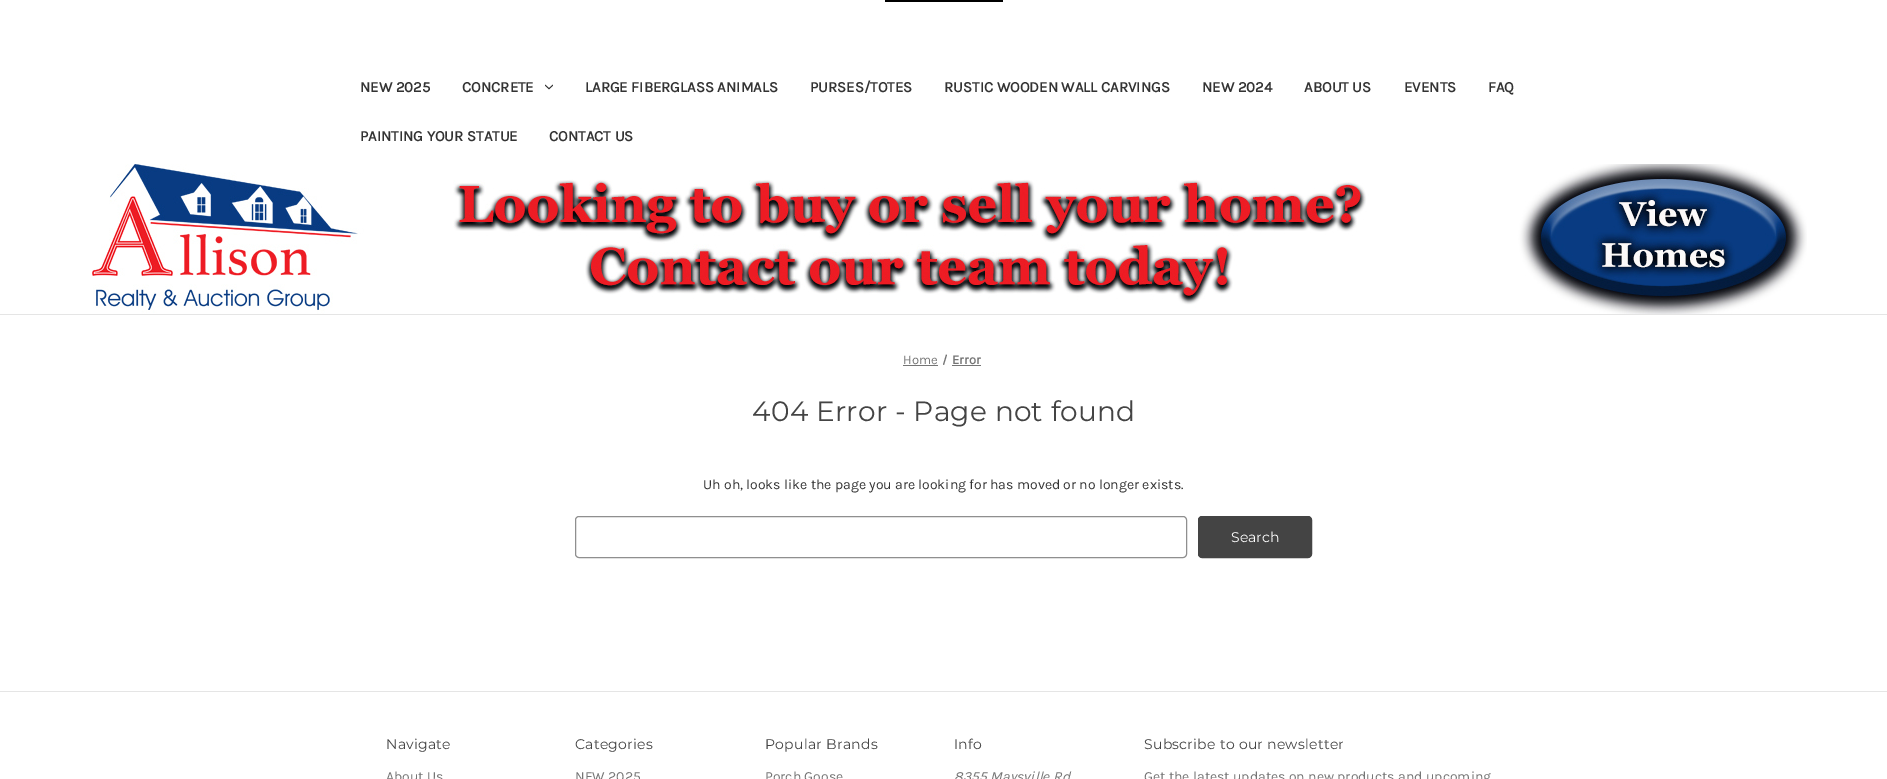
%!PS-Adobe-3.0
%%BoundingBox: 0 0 1887 779
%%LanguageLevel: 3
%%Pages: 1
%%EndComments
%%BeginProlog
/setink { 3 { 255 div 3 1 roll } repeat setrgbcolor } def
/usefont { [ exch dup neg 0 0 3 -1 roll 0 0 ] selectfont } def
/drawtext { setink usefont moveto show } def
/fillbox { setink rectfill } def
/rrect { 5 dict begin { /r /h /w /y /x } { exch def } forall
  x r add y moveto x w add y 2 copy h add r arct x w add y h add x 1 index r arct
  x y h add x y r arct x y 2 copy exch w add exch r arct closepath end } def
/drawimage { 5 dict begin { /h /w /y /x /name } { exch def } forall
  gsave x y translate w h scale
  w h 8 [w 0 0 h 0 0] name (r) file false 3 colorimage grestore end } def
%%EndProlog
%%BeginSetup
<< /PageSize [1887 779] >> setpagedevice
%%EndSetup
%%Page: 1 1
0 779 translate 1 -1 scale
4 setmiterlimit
0 0 1887 779 255 255 255 fillbox
0 314 1887 1 229 229 229 fillbox
885 0 118 2 0 0 0 fillbox
(NEW 2025) 360 92 /Karla-Bold 15 51 51 51 drawtext
(CONCRETE) 462 92 /Karla-Bold 15 51 51 51 drawtext
(assets/img1.rgb) 545 84 8 6 drawimage
(LARGE FIBERGLASS ANIMALS) 585 92 /Karla-Bold 15 51 51 51 drawtext
(PURSES/TOTES) 810 92 /Karla-Bold 15 51 51 51 drawtext
(RUSTIC WOODEN WALL CARVINGS) 944 92 /Karla-Bold 15 51 51 51 drawtext
(NEW 2024) 1202 92 /Karla-Bold 15 51 51 51 drawtext
(ABOUT US) 1304 92 /Karla-Bold 15 51 51 51 drawtext
(EVENTS) 1404 92 /Karla-Bold 15 51 51 51 drawtext
(FAQ) 1488 92 /Karla-Bold 15 51 51 51 drawtext
(PAINTING YOUR STATUE) 360 141 /Karla-Bold 15 51 51 51 drawtext
(CONTACT US) 549 141 /Karla-Bold 15 51 51 51 drawtext
(assets/img2.rgb) 92 164 1715 150 drawimage
(Home) 903 364 /Karla-Regular 13 117 117 117 drawtext
903 365 35 1 117 117 117 fillbox
946 354.5 moveto 947 355 lineto 944 365 lineto 943 364.5 lineto closepath fill
(Error) 952 364 /Karla-Bold 13 117 117 117 drawtext
952 365 29 1 117 117 117 fillbox
/Montserrat-Regular 28 usefont
68 68 68 setink
752 421 moveto 0.25 0 (404 Error - Page not found) ashow
(Uh oh, looks like the page you are looking for has moved or no longer exists.) 703 489 /Karla-Regular 14 51 51 51 drawtext
143 143 143 setink
575.5 516.5 611 41 3.5 rrect stroke
68 68 68 setink
1198.5 516.5 113 41 3.5 rrect gsave fill grestore
stroke
(Search) 1231 542 /Montserrat-Regular 14 255 255 255 drawtext
0 691 1887 1 229 229 229 fillbox
68 68 68 setink
386 749 moveto 0.25 0 (Navigate) ashow
(About Us) 386 781 /Karla-Regular 14 117 117 117 drawtext
/Montserrat-Regular 14 usefont
68 68 68 setink
575 749 moveto 0.25 0 (Categories) ashow
(NEW 2025) 575 781 /Karla-Regular 14 117 117 117 drawtext
/Montserrat-Regular 14 usefont
68 68 68 setink
765 749 moveto 0.25 0 (Popular Brands) ashow
(Porch Goose) 765 781 /Karla-Regular 14 117 117 117 drawtext
/Montserrat-Regular 14 usefont
68 68 68 setink
954 749 moveto 0.25 0 (Info) ashow
(8355 Maysville Rd.) 954 781 /Karla-Italic 14 117 117 117 drawtext
/Montserrat-Regular 14 usefont
68 68 68 setink
1144 749 moveto 0.25 0 (Subscribe to our newsletter) ashow
(Get the latest updates on new products and upcoming) 1144 781 /Karla-Regular 14 117 117 117 drawtext
showpage
%%EOF
